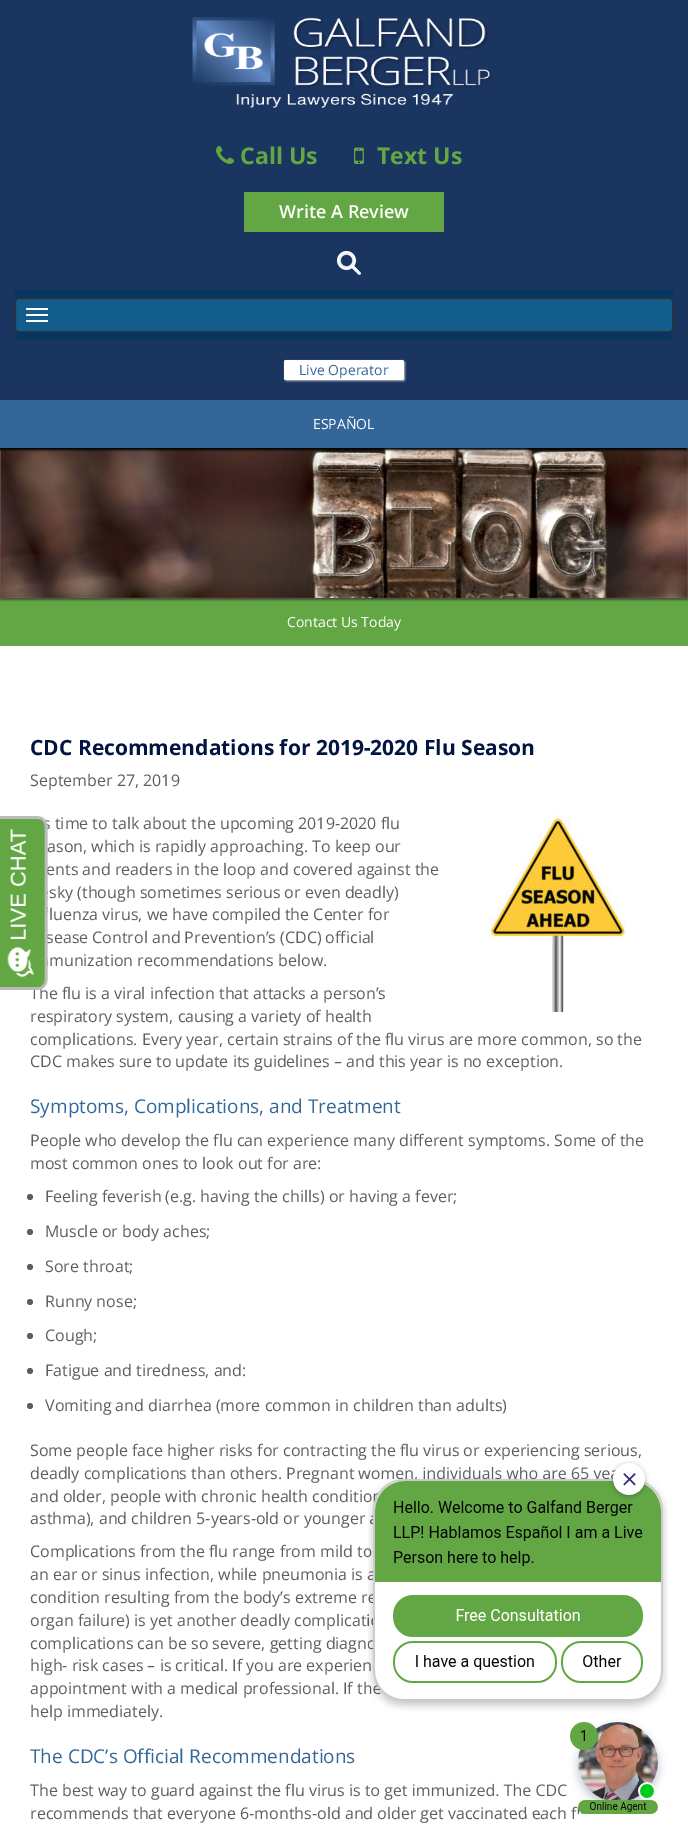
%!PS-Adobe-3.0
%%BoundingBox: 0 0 688 1826
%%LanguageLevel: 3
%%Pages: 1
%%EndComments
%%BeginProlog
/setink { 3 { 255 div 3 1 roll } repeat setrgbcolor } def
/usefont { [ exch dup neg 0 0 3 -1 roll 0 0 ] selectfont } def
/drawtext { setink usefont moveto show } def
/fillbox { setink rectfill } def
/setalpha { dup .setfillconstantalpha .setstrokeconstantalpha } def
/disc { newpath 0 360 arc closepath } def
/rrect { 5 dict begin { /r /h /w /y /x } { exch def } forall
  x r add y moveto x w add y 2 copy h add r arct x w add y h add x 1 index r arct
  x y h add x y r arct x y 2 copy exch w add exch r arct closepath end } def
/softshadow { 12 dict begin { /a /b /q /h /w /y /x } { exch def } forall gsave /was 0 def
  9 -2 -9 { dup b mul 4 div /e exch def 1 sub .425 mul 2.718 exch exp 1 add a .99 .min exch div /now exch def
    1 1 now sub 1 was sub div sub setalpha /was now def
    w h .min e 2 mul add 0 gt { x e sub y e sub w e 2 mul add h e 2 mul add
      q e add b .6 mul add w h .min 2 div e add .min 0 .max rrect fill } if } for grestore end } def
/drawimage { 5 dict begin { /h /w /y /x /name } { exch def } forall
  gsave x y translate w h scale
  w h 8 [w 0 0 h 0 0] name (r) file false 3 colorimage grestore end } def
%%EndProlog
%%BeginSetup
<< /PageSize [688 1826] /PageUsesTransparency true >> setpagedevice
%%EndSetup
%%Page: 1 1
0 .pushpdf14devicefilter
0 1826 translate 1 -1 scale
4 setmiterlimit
0 0 688 1826 255 255 255 fillbox
(s time to talk about the upcoming 2019-2020 flu) 43 829 /OpenSans-Regular 16 93 93 93 drawtext
(ason, which is rapidly approaching. To keep our) 47 852 /OpenSans-Regular 16 93 93 93 drawtext
(ents and readers in the loop and covered against the) 46 875 /OpenSans-Regular 16 93 93 93 drawtext
(sease Control and Prevention’s \(CDC\) official) 46 943 /OpenSans-Regular 16 93 93 93 drawtext
(The flu is a viral infection that attacks a person’s) 30 999 /OpenSans-Regular 16 93 93 93 drawtext
(assets/img1.rgb) 0 816 48 174 drawimage
0 0 688 400 27 53 97 fillbox
(assets/img2.rgb) 192 17 301 91 drawimage
(assets/img3.rgb) 216 146 18 18 drawimage
(Call Us) 240 164 /OpenSans-Bold 23 98 167 68 drawtext
(assets/img4.rgb) 354 147 10 17 drawimage
(Text Us) 377 164 /OpenSans-Bold 23 98 167 68 drawtext
244 192 200 40 98 167 68 fillbox
(Write A Review) 279 218 /OpenSans-SemiBold 18 255 255 255 drawtext
(assets/img5.rgb) 337 251 24 24 drawimage
15 290 658 50 9 53 97 fillbox
19 93 140 setink
15.5 298.5 657 33 3.5 rrect gsave fill grestore
51 51 51 setink
stroke
255 255 255 setink
26 308 22 2 1 rrect fill
26 314 22 2 1 rrect fill
26 320 22 2 1 rrect fill
192 192 192 setink
285 361 120 20 2 1 1 softshadow
255 255 255 setink
284 360 120 20 2 rrect fill
(Live Operator) 299 375 /OpenSans-Regular 14 51 102 153 drawtext
0 598 688 48 98 167 68 fillbox
51 51 51 setink
0 450 688 150 0 1 0.75 softshadow
(assets/img6.rgb) 0 448 688 150 drawimage
0 0 0 setink
-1 402 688 48 0 1 1 softshadow
0 400 688 48 51 102 153 fillbox
(ESPAÑOL) 313 429 /OpenSans-Regular 14 255 255 255 drawtext
(Contact Us Today) 287 627 /OpenSans-Regular 14 255 255 255 drawtext
(CDC Recommendations for 2019-2020 Flu Season) 30 755 /OpenSans-Bold 21 2 21 66 drawtext
(September 27, 2019) 30 786 /OpenSans-Regular 16 93 93 93 drawtext
(assets/img7.rgb) 490 812 136 200 drawimage
(sky \(though sometimes serious or even deadly\)) 49 898 /OpenSans-Regular 16 93 93 93 drawtext
(luenza virus, we have compiled the Center for) 49 920 /OpenSans-Regular 16 93 93 93 drawtext
(munization recommendations below.) 49 966 /OpenSans-Regular 16 93 93 93 drawtext
(respiratory system, causing a variety of health) 30 1022 /OpenSans-Regular 16 93 93 93 drawtext
(complications. Every year, certain strains of the flu virus are more common, so the) 30 1045 /OpenSans-Regular 16 93 93 93 drawtext
(CDC makes sure to update its guidelines – and this year is no exception.) 30 1067 /OpenSans-Regular 16 93 93 93 drawtext
(Symptoms, Complications, and Treatment) 30 1113 /OpenSans-Regular 19 51 102 153 drawtext
(People who develop the flu can experience many different symptoms. Some of the) 30 1146 /OpenSans-Regular 16 93 93 93 drawtext
(most common ones to look out for are:) 30 1169 /OpenSans-Regular 16 93 93 93 drawtext
30 1197 3 disc fill
(Feeling feverish \(e.g. having the chills\) or having a fever;) 45 1202 /OpenSans-Regular 16 93 93 93 drawtext
30 1232 3 disc fill
(Muscle or body aches;) 45 1237 /OpenSans-Regular 16 93 93 93 drawtext
30 1267 3 disc fill
(Sore throat;) 45 1272 /OpenSans-Regular 16 93 93 93 drawtext
30 1302 3 disc fill
(Runny nose;) 45 1307 /OpenSans-Regular 16 93 93 93 drawtext
30 1336 3 disc fill
(Cough;) 45 1341 /OpenSans-Regular 16 93 93 93 drawtext
30 1371 3 disc fill
(Fatigue and tiredness, and:) 45 1376 /OpenSans-Regular 16 93 93 93 drawtext
30 1406 3 disc fill
(Vomiting and diarrhea \(more common in children than adults\)) 45 1411 /OpenSans-Regular 16 93 93 93 drawtext
(Some people face higher risks for contracting the flu virus or experiencing serious,) 30 1456 /OpenSans-Regular 16 93 93 93 drawtext
(deadly complications than others. Pregnant women, individuals who are 65 ye) 30 1479 /OpenSans-Regular 16 93 93 93 drawtext
(and older, people with chronic health conditio) 30 1502 /OpenSans-Regular 16 93 93 93 drawtext
(asthma\), and children 5-years-old or younger) 30 1524 /OpenSans-Regular 16 93 93 93 drawtext
(Complications from the flu range from mild to) 30 1557 /OpenSans-Regular 16 93 93 93 drawtext
(an ear or sinus infection, while pneumonia is a) 30 1580 /OpenSans-Regular 16 93 93 93 drawtext
(condition resulting from the body’s extreme re) 30 1603 /OpenSans-Regular 16 93 93 93 drawtext
(organ failure\) is yet another deadly complicati) 30 1626 /OpenSans-Regular 16 93 93 93 drawtext
(complications can be so severe, getting diagno) 30 1649 /OpenSans-Regular 16 93 93 93 drawtext
(high- risk cases – is critical. If you are experien) 30 1671 /OpenSans-Regular 16 93 93 93 drawtext
(appointment with a medical professional. If the) 30 1694 /OpenSans-Regular 16 93 93 93 drawtext
(help immediately.) 30 1717 /OpenSans-Regular 16 93 93 93 drawtext
(The CDC’s Official Recommendations) 30 1763 /OpenSans-Regular 19 51 102 153 drawtext
(The best way to guard against the flu virus is to get immunized. The CDC) 30 1796 /OpenSans-Regular 16 93 93 93 drawtext
(recommends that everyone 6-months-old and older get vaccinated each f) 30 1819 /OpenSans-Regular 16 93 93 93 drawtext
(assets/img8.rgb) 368 1461 300 353 drawimage
.poppdf14devicefilter showpage
%%EOF
